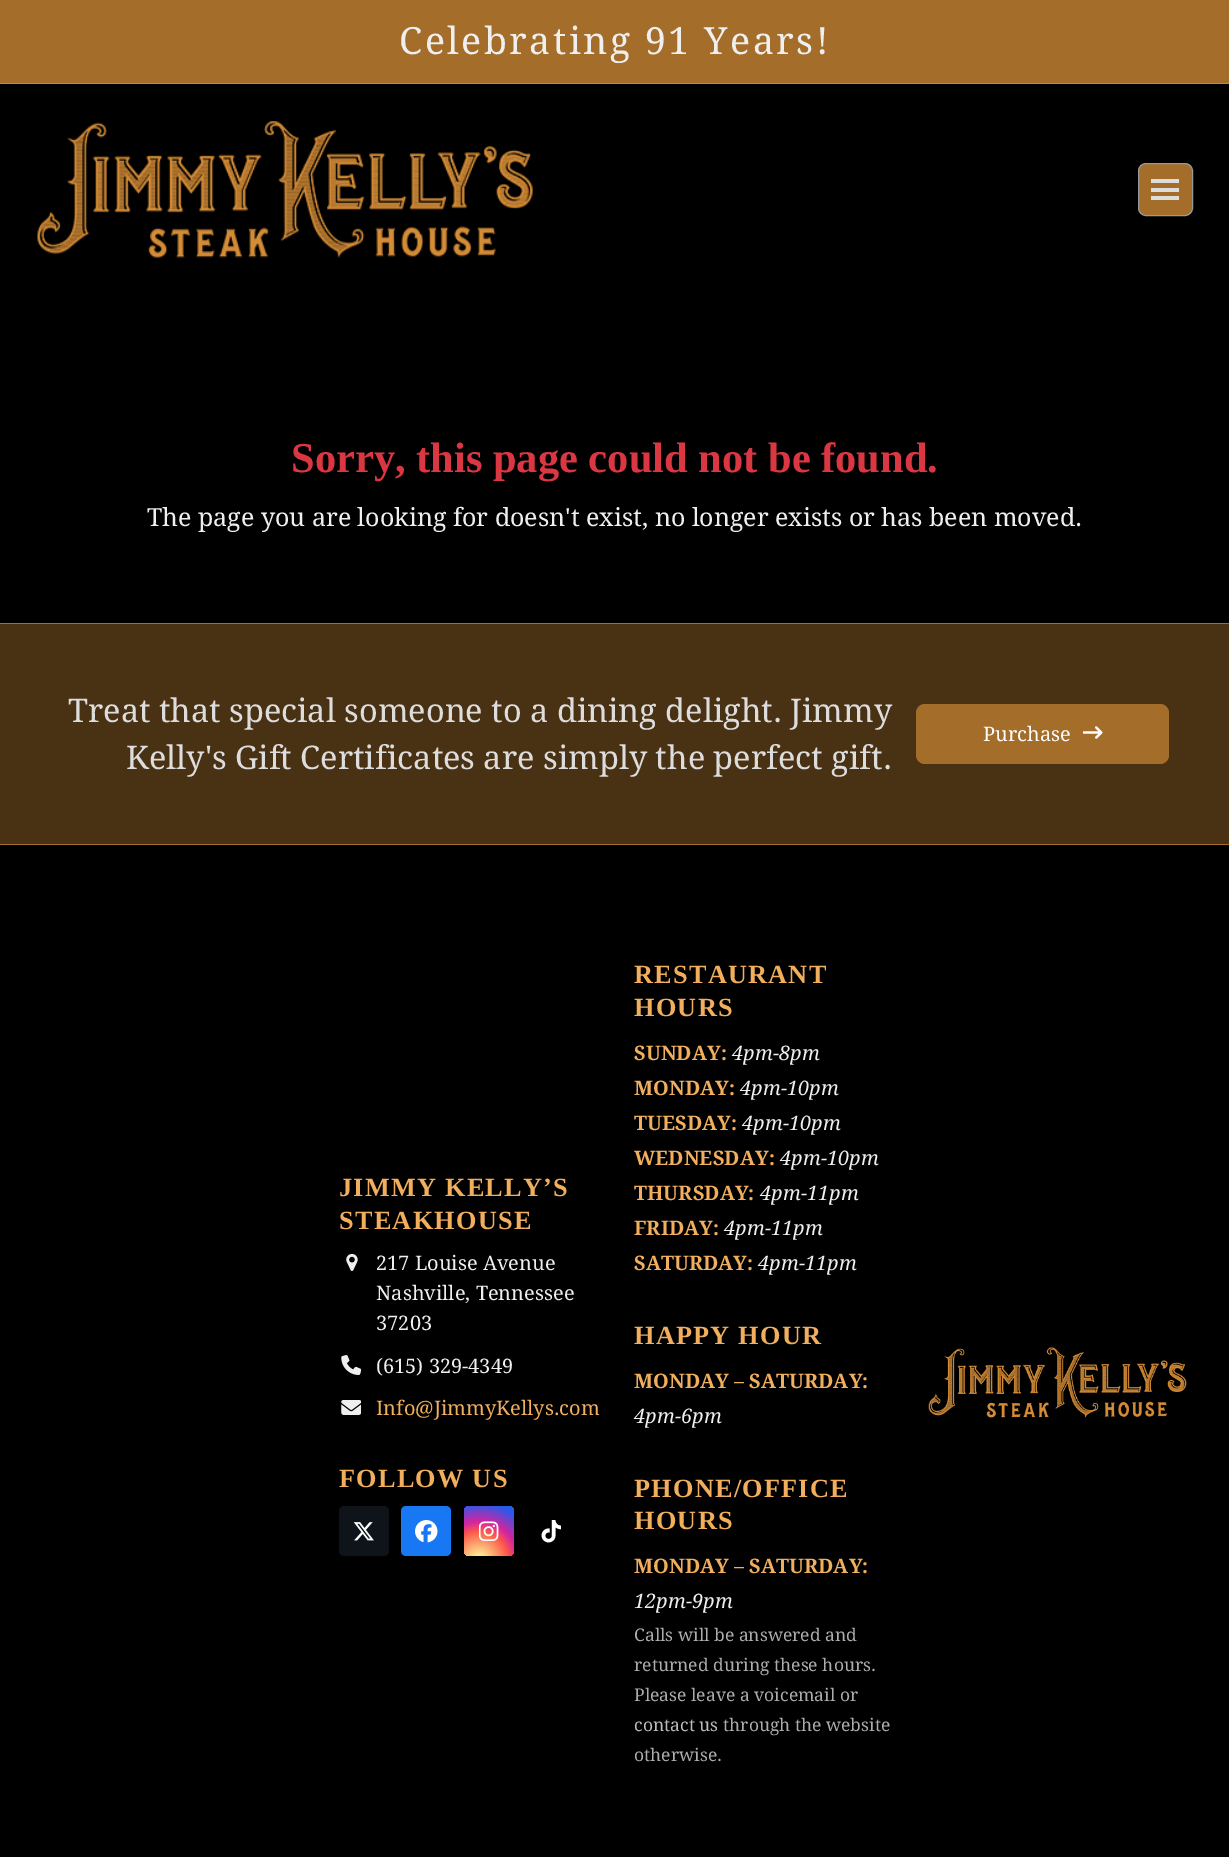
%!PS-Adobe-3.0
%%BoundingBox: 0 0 1229 1857
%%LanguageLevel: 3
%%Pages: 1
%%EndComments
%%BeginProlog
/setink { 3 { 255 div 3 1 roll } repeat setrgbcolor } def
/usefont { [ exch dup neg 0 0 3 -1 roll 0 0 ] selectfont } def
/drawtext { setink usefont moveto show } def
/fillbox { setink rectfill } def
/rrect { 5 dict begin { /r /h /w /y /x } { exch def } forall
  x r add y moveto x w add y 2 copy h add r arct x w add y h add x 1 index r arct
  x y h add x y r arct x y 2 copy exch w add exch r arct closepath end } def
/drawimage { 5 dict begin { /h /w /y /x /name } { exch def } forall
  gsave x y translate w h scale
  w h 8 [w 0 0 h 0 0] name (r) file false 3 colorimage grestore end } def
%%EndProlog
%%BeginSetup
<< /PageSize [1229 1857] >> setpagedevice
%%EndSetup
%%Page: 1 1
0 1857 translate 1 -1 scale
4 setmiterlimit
0 0 1229 1857 0 0 0 fillbox
0 0 1229 83 165 109 42 fillbox
0 83 1229 1 193 135 80 fillbox
/DroidSerif-Regular 37.5 usefont
239 239 239 setink
399 54 moveto 2.5 0 (Celebrating 91 Years!) ashow
(assets/img1.rgb) 37 121 496 137 drawimage
165 109 42 setink
1138.5 163.5 54 52 7.5 rrect gsave fill grestore
153 153 153 setink
stroke
1151 188 28 4 221 221 221 fillbox
1151 179 28 4 221 221 221 fillbox
1151 196 28 4 221 221 221 fillbox
(Sorry, this page could not be found.) 291 472 /LiberationSerif-Bold 42.5 218 55 67 drawtext
(The page you are looking for doesn't exist, no longer exists or has been moved.) 147 526 /DroidSerif-Regular 25 239 239 239 drawtext
0 624 1229 220 73 49 20 fillbox
0 623 1229 1 165 109 42 fillbox
(Treat that special someone to a dining delight. Jimmy) 68 722 /DroidSerif-Regular 32.5 221 221 221 drawtext
(Kelly's Gift Certificates are simply the perfect gift.) 126 769 /DroidSerif-Regular 32.5 221 221 221 drawtext
165 109 42 setink
916 704 253 60 9 rrect fill
(Purchase) 983 741 /DroidSerif-Regular 20 255 255 255 drawtext
(assets/img2.rgb) 1083 726 20 13 drawimage
0 844 1229 1 165 109 42 fillbox
/LiberationSerif-Bold 26.25 usefont
241 174 93 setink
339 1196 moveto 1.25 0 (JIMMY KELLY’S) ashow
339 1229 moveto 1.25 0 (STEAKHOUSE) ashow
(assets/img3.rgb) 346 1253 12 18 drawimage
(217 Louise Avenue) 376 1270 /DroidSerif-Regular 20 239 239 239 drawtext
(Nashville, Tennessee) 376 1300 /DroidSerif-Regular 20 239 239 239 drawtext
(37203) 376 1330 /DroidSerif-Regular 20 239 239 239 drawtext
(assets/img4.rgb) 341 1355 20 20 drawimage
(\(615\) 329-4349) 376 1373 /DroidSerif-Regular 20 239 239 239 drawtext
(assets/img5.rgb) 341 1400 20 15 drawimage
(Info@JimmyKellys.com) 376 1415 /DroidSerif-Regular 20 241 174 93 drawtext
/LiberationSerif-Bold 26.25 usefont
339 1487 moveto 1.25 0 (FOLLOW US) ashow
15 20 26 setink
339 1506 50 50 5 rrect fill
(assets/img6.rgb) 353 1522 21 19 drawimage
24 119 242 setink
401 1506 50 50 5 rrect fill
(assets/img7.rgb) 415 1520 23 23 drawimage
gsave 464 1506 50 50 5 rrect clip newpath 479 1560 translate 64 64 scale
<< /ShadingType 3 /ColorSpace /DeviceRGB /Coords [0 0 0 0 0 1] /Extend [true true] /Function << /FunctionType 3 /Domain [0 1] /Functions [<< /FunctionType 2 /Domain [0 1] /C0 [0.992 0.957 0.592] /C1 [0.992 0.957 0.592] /N 1 >> << /FunctionType 2 /Domain [0 1] /C0 [0.992 0.957 0.592] /C1 [0.992 0.349 0.286] /N 1 >> << /FunctionType 2 /Domain [0 1] /C0 [0.992 0.349 0.286] /C1 [0.839 0.141 0.624] /N 1 >> << /FunctionType 2 /Domain [0 1] /C0 [0.839 0.141 0.624] /C1 [0.157 0.353 0.922] /N 1 >> << /FunctionType 2 /Domain [0 1] /C0 [0.157 0.353 0.922] /C1 [0.157 0.353 0.922] /N 1 >>] /Bounds [0.05 0.45 0.6 0.9] /Encode [0 1 0 1 0 1 0 1 0 1] >> >> shfill grestore
(assets/img8.rgb) 479 1521 20 20 drawimage
(assets/img9.rgb) 541 1520 20 23 drawimage
241 174 93 setink
634 983 moveto 1.25 0 (RESTAURANT) ashow
634 1016 moveto 1.25 0 (HOURS) ashow
(SUNDAY:) 634 1060 /DroidSerif-Bold 20 241 174 93 drawtext
(4pm-8pm) 732 1060 /DroidSerif-Italic 20 239 239 239 drawtext
(MONDAY:) 634 1095 /DroidSerif-Bold 20 241 174 93 drawtext
(4pm-10pm) 740 1095 /DroidSerif-Italic 20 239 239 239 drawtext
(TUESDAY:) 634 1130 /DroidSerif-Bold 20 241 174 93 drawtext
(4pm-10pm) 742 1130 /DroidSerif-Italic 20 239 239 239 drawtext
(WEDNESDAY:) 634 1165 /DroidSerif-Bold 20 241 174 93 drawtext
(4pm-10pm) 780 1165 /DroidSerif-Italic 20 239 239 239 drawtext
(THURSDAY:) 634 1200 /DroidSerif-Bold 20 241 174 93 drawtext
(4pm-11pm) 760 1200 /DroidSerif-Italic 20 239 239 239 drawtext
(FRIDAY:) 634 1235 /DroidSerif-Bold 20 241 174 93 drawtext
(4pm-11pm) 724 1235 /DroidSerif-Italic 20 239 239 239 drawtext
(SATURDAY:) 634 1270 /DroidSerif-Bold 20 241 174 93 drawtext
(4pm-11pm) 758 1270 /DroidSerif-Italic 20 239 239 239 drawtext
/LiberationSerif-Bold 26.25 usefont
241 174 93 setink
634 1344 moveto 1.25 0 (HAPPY HOUR) ashow
(MONDAY – SATURDAY:) 634 1388 /DroidSerif-Bold 20 241 174 93 drawtext
(4pm-6pm) 634 1423 /DroidSerif-Italic 20 239 239 239 drawtext
/LiberationSerif-Bold 26.25 usefont
241 174 93 setink
634 1497 moveto 1.25 0 (PHONE/OFFICE) ashow
634 1529 moveto 1.25 0 (HOURS) ashow
(MONDAY – SATURDAY:) 634 1573 /DroidSerif-Bold 20 241 174 93 drawtext
(12pm-9pm) 634 1608 /DroidSerif-Italic 20 239 239 239 drawtext
(Calls will be answered and) 634 1641 /DroidSerif-Regular 17.5 173 173 173 drawtext
(returned during these hours.) 634 1671 /DroidSerif-Regular 17.5 173 173 173 drawtext
(Please leave a voicemail or) 634 1701 /DroidSerif-Regular 17.5 173 173 173 drawtext
(contact us) 634 1731 /DroidSerif-Regular 17.5 189 189 189 drawtext
(through the website) 723 1731 /DroidSerif-Regular 17.5 173 173 173 drawtext
(otherwise.) 634 1761 /DroidSerif-Regular 17.5 173 173 173 drawtext
(assets/img10.rgb) 928 1347 259 71 drawimage
showpage
%%EOF
